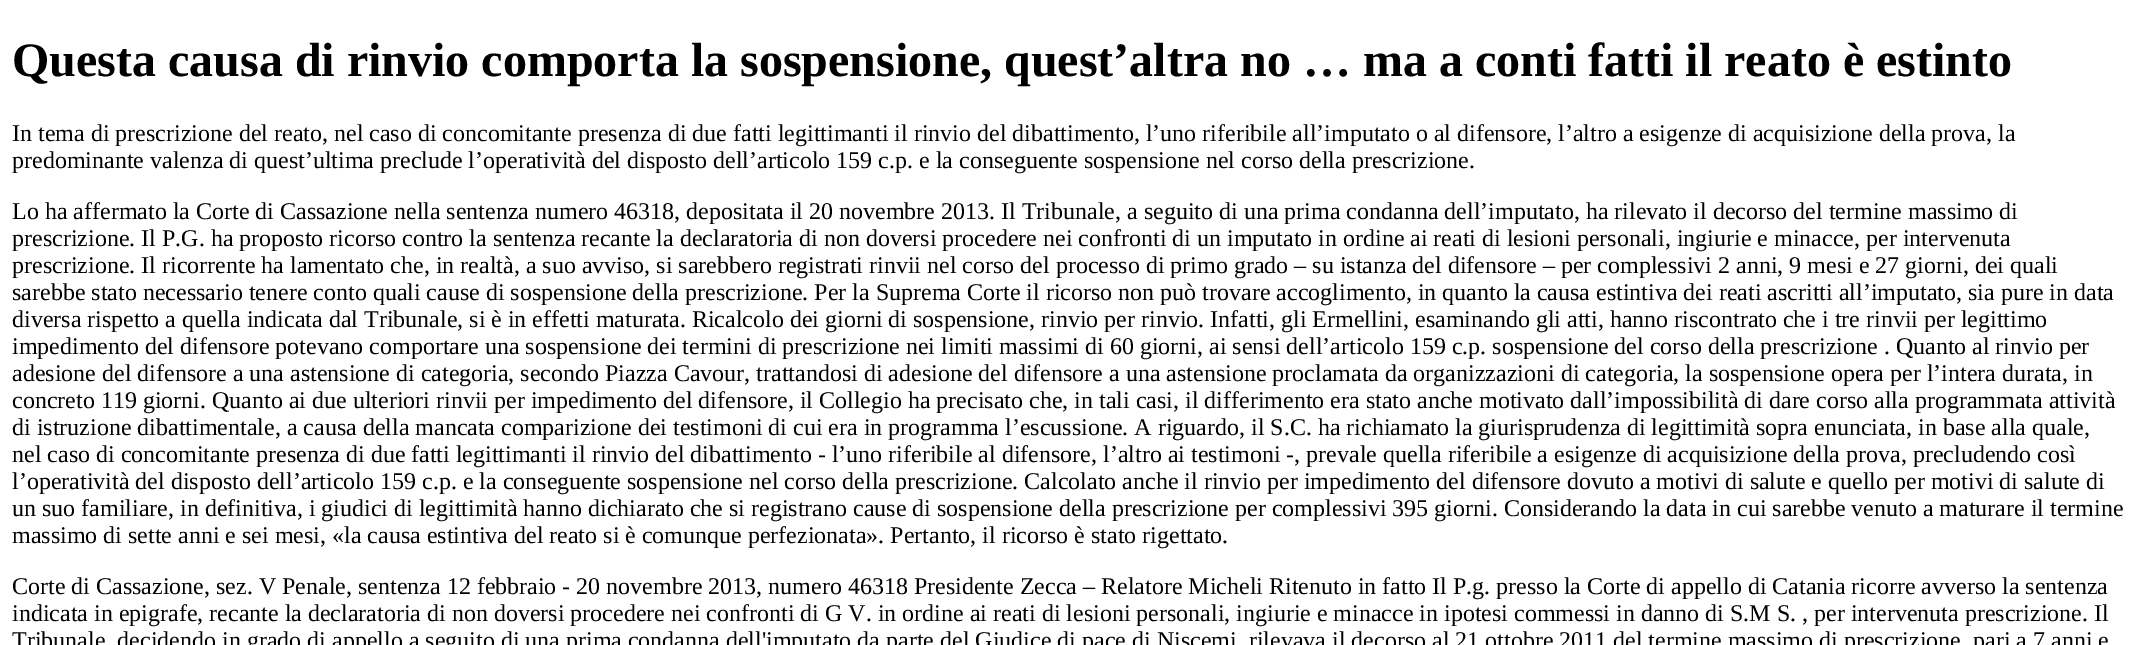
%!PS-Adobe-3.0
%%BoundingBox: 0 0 2136 645
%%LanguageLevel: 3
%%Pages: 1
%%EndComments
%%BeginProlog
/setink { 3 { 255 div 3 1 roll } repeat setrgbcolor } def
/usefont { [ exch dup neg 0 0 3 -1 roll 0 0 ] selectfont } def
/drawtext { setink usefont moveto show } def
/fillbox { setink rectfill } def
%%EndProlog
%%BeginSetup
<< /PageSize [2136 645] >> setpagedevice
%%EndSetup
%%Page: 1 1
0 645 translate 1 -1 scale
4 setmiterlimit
0 0 2136 645 255 255 255 fillbox
(Questa causa di rinvio comporta la sospensione, quest’altra no … ma a conti fatti il reato è estinto) 12 76 /LiberationSerif-Bold 48 0 0 0 drawtext
(In tema di prescrizione del reato, nel caso di concomitante presenza di due fatti legittimanti il rinvio del dibattimento, l’uno riferibile all’imputato o al difensore, l’altro a esigenze di acquisizione della prova, la) 12 141 /LiberationSerif-Regular 24 0 0 0 drawtext
(predominante valenza di quest’ultima preclude l’operatività del disposto dell’articolo 159 c.p. e la conseguente sospensione nel corso della prescrizione.) 12 168 /LiberationSerif-Regular 24 0 0 0 drawtext
(Lo ha affermato la Corte di Cassazione nella sentenza numero 46318, depositata il 20 novembre 2013. Il Tribunale, a seguito di una prima condanna dell’imputato, ha rilevato il decorso del termine massimo di) 12 219 /LiberationSerif-Regular 24 0 0 0 drawtext
(prescrizione. Il P.G. ha proposto ricorso contro la sentenza recante la declaratoria di non doversi procedere nei confronti di un imputato in ordine ai reati di lesioni personali, ingiurie e minacce, per intervenuta) 12 246 /LiberationSerif-Regular 24 0 0 0 drawtext
(prescrizione. Il ricorrente ha lamentato che, in realtà, a suo avviso, si sarebbero registrati rinvii nel corso del processo di primo grado – su istanza del difensore – per complessivi 2 anni, 9 mesi e 27 giorni, dei quali) 12 273 /LiberationSerif-Regular 24 0 0 0 drawtext
(sarebbe stato necessario tenere conto quali cause di sospensione della prescrizione. Per la Suprema Corte il ricorso non può trovare accoglimento, in quanto la causa estintiva dei reati ascritti all’imputato, sia pure in data) 12 300 /LiberationSerif-Regular 24 0 0 0 drawtext
(diversa rispetto a quella indicata dal Tribunale, si è in effetti maturata. Ricalcolo dei giorni di sospensione, rinvio per rinvio. Infatti, gli Ermellini, esaminando gli atti, hanno riscontrato che i tre rinvii per legittimo) 12 327 /LiberationSerif-Regular 24 0 0 0 drawtext
(impedimento del difensore potevano comportare una sospensione dei termini di prescrizione nei limiti massimi di 60 giorni, ai sensi dell’articolo 159 c.p. sospensione del corso della prescrizione . Quanto al rinvio per) 12 354 /LiberationSerif-Regular 24 0 0 0 drawtext
(adesione del difensore a una astensione di categoria, secondo Piazza Cavour, trattandosi di adesione del difensore a una astensione proclamata da organizzazioni di categoria, la sospensione opera per l’intera durata, in) 12 381 /LiberationSerif-Regular 24 0 0 0 drawtext
(concreto 119 giorni. Quanto ai due ulteriori rinvii per impedimento del difensore, il Collegio ha precisato che, in tali casi, il differimento era stato anche motivato dall’impossibilità di dare corso alla programmata attività) 12 408 /LiberationSerif-Regular 24 0 0 0 drawtext
(di istruzione dibattimentale, a causa della mancata comparizione dei testimoni di cui era in programma l’escussione. A riguardo, il S.C. ha richiamato la giurisprudenza di legittimità sopra enunciata, in base alla quale,) 12 435 /LiberationSerif-Regular 24 0 0 0 drawtext
(nel caso di concomitante presenza di due fatti legittimanti il rinvio del dibattimento - l’uno riferibile al difensore, l’altro ai testimoni -, prevale quella riferibile a esigenze di acquisizione della prova, precludendo così) 12 462 /LiberationSerif-Regular 24 0 0 0 drawtext
(l’operatività del disposto dell’articolo 159 c.p. e la conseguente sospensione nel corso della prescrizione. Calcolato anche il rinvio per impedimento del difensore dovuto a motivi di salute e quello per motivi di salute di) 12 489 /LiberationSerif-Regular 24 0 0 0 drawtext
(un suo familiare, in definitiva, i giudici di legittimità hanno dichiarato che si registrano cause di sospensione della prescrizione per complessivi 395 giorni. Considerando la data in cui sarebbe venuto a maturare il termine) 12 516 /LiberationSerif-Regular 24 0 0 0 drawtext
(massimo di sette anni e sei mesi, «la causa estintiva del reato si è comunque perfezionata». Pertanto, il ricorso è stato rigettato.) 12 543 /LiberationSerif-Regular 24 0 0 0 drawtext
(Corte di Cassazione, sez. V Penale, sentenza 12 febbraio - 20 novembre 2013, numero 46318 Presidente Zecca – Relatore Micheli Ritenuto in fatto Il P.g. presso la Corte di appello di Catania ricorre avverso la sentenza) 12 594 /LiberationSerif-Regular 24 0 0 0 drawtext
(indicata in epigrafe, recante la declaratoria di non doversi procedere nei confronti di G V. in ordine ai reati di lesioni personali, ingiurie e minacce in ipotesi commessi in danno di S.M S. , per intervenuta prescrizione. Il) 12 621 /LiberationSerif-Regular 24 0 0 0 drawtext
(Tribunale, decidendo in grado di appello a seguito di una prima condanna dell'imputato da parte del Giudice di pace di Niscemi, rilevava il decorso al 21 ottobre 2011 del termine massimo di prescrizione, pari a 7 anni e) 12 648 /LiberationSerif-Regular 24 0 0 0 drawtext
showpage
%%EOF
